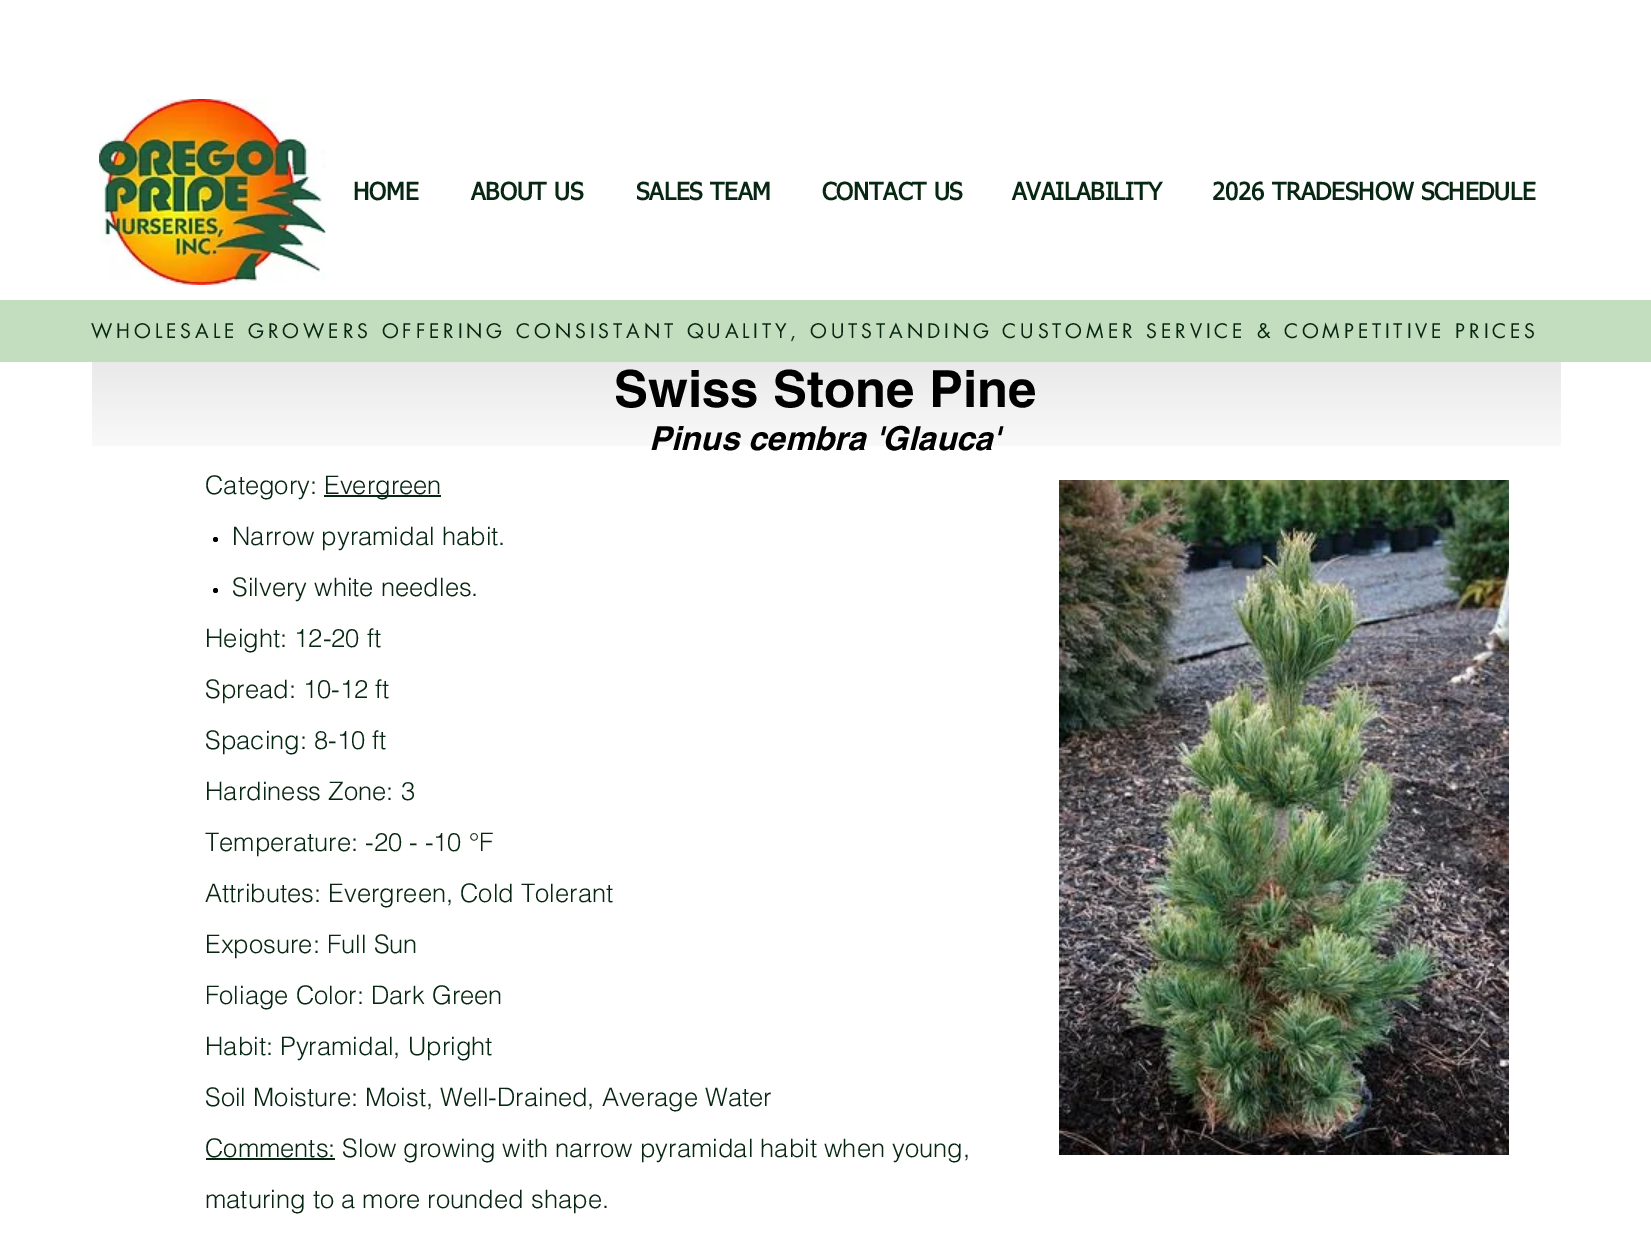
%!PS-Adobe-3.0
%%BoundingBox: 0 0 1651 1251
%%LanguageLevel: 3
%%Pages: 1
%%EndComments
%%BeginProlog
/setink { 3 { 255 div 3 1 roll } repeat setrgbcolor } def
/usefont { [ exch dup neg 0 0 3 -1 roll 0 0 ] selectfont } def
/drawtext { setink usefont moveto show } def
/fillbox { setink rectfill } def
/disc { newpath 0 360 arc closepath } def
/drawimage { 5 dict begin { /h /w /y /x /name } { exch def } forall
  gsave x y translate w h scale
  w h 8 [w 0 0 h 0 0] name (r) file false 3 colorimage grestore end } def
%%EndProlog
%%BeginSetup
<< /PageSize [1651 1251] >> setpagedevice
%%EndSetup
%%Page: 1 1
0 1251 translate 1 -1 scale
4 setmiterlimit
0 0 1651 1251 255 255 255 fillbox
(assets/img1.rgb) 99 99 227 186 drawimage
(HOME) 353 200 /tahoma-Bold 24 8 39 19 drawtext
(ABOUT US) 471 200 /tahoma-Bold 24 8 39 19 drawtext
(SALES TEAM) 636 200 /tahoma-Bold 24 8 39 19 drawtext
(CONTACT US) 822 200 /tahoma-Bold 24 8 39 19 drawtext
(AVAILABILITY) 1012 200 /tahoma-Bold 24 8 39 19 drawtext
(2026 TRADESHOW SCHEDULE) 1212 200 /tahoma-Bold 24 8 39 19 drawtext
0 300 1651 62 194 222 190 fillbox
/futura-Regular 19.5 usefont
8 39 19 setink
91 338 moveto 3.9 0 (WHOLESALE GROWERS OFFERING CONSISTANT QUALITY, OUTSTANDING CUSTOMER SERVICE & COMPETITIVE PRICES) ashow
(assets/img2.rgb) 92 362 1469 84 drawimage
(Swiss Stone Pine) 614 407 /helvetica-Bold 51 0 0 0 drawtext
(Pinus cembra 'Glauca') 649 450 /helvetica-BoldItalic 33 0 0 0 drawtext
(Category:) 205 494 /helvetica-Light 25.5 8 39 19 drawtext
324 495 117 2 8 39 19 fillbox
(Evergreen) 324 494 /helvetica-Light 25.5 8 39 19 drawtext
0 0 0 setink
215.5 539.5 2.5 disc fill
(Narrow pyramidal habit.) 232 545 /helvetica-Light 25.5 8 39 19 drawtext
0 0 0 setink
215.5 590.5 2.5 disc fill
(Silvery white needles.) 232 596 /helvetica-Light 25.5 8 39 19 drawtext
(Height: 12-20 ft) 205 647 /helvetica-Light 25.5 8 39 19 drawtext
(Spread: 10-12 ft) 205 698 /helvetica-Light 25.5 8 39 19 drawtext
(Spacing: 8-10 ft) 205 749 /helvetica-Light 25.5 8 39 19 drawtext
(Hardiness Zone: 3) 205 800 /helvetica-Light 25.5 8 39 19 drawtext
(Temperature: -20 - -10 °F) 205 851 /helvetica-Light 25.5 8 39 19 drawtext
(Attributes: Evergreen, Cold Tolerant) 205 902 /helvetica-Light 25.5 8 39 19 drawtext
(Exposure: Full Sun) 205 953 /helvetica-Light 25.5 8 39 19 drawtext
(Foliage Color: Dark Green) 205 1004 /helvetica-Light 25.5 8 39 19 drawtext
(Habit: Pyramidal, Upright) 205 1055 /helvetica-Light 25.5 8 39 19 drawtext
(Soil Moisture: Moist, Well-Drained, Average Water) 205 1106 /helvetica-Light 25.5 8 39 19 drawtext
206 1158 129 2 8 39 19 fillbox
(Comments: Slow growing with narrow pyramidal habit when young,) 205 1157 /helvetica-Light 25.5 8 39 19 drawtext
(maturing to a more rounded shape.) 205 1208 /helvetica-Light 25.5 8 39 19 drawtext
(assets/img3.rgb) 1059 480 450 675 drawimage
showpage
%%EOF
